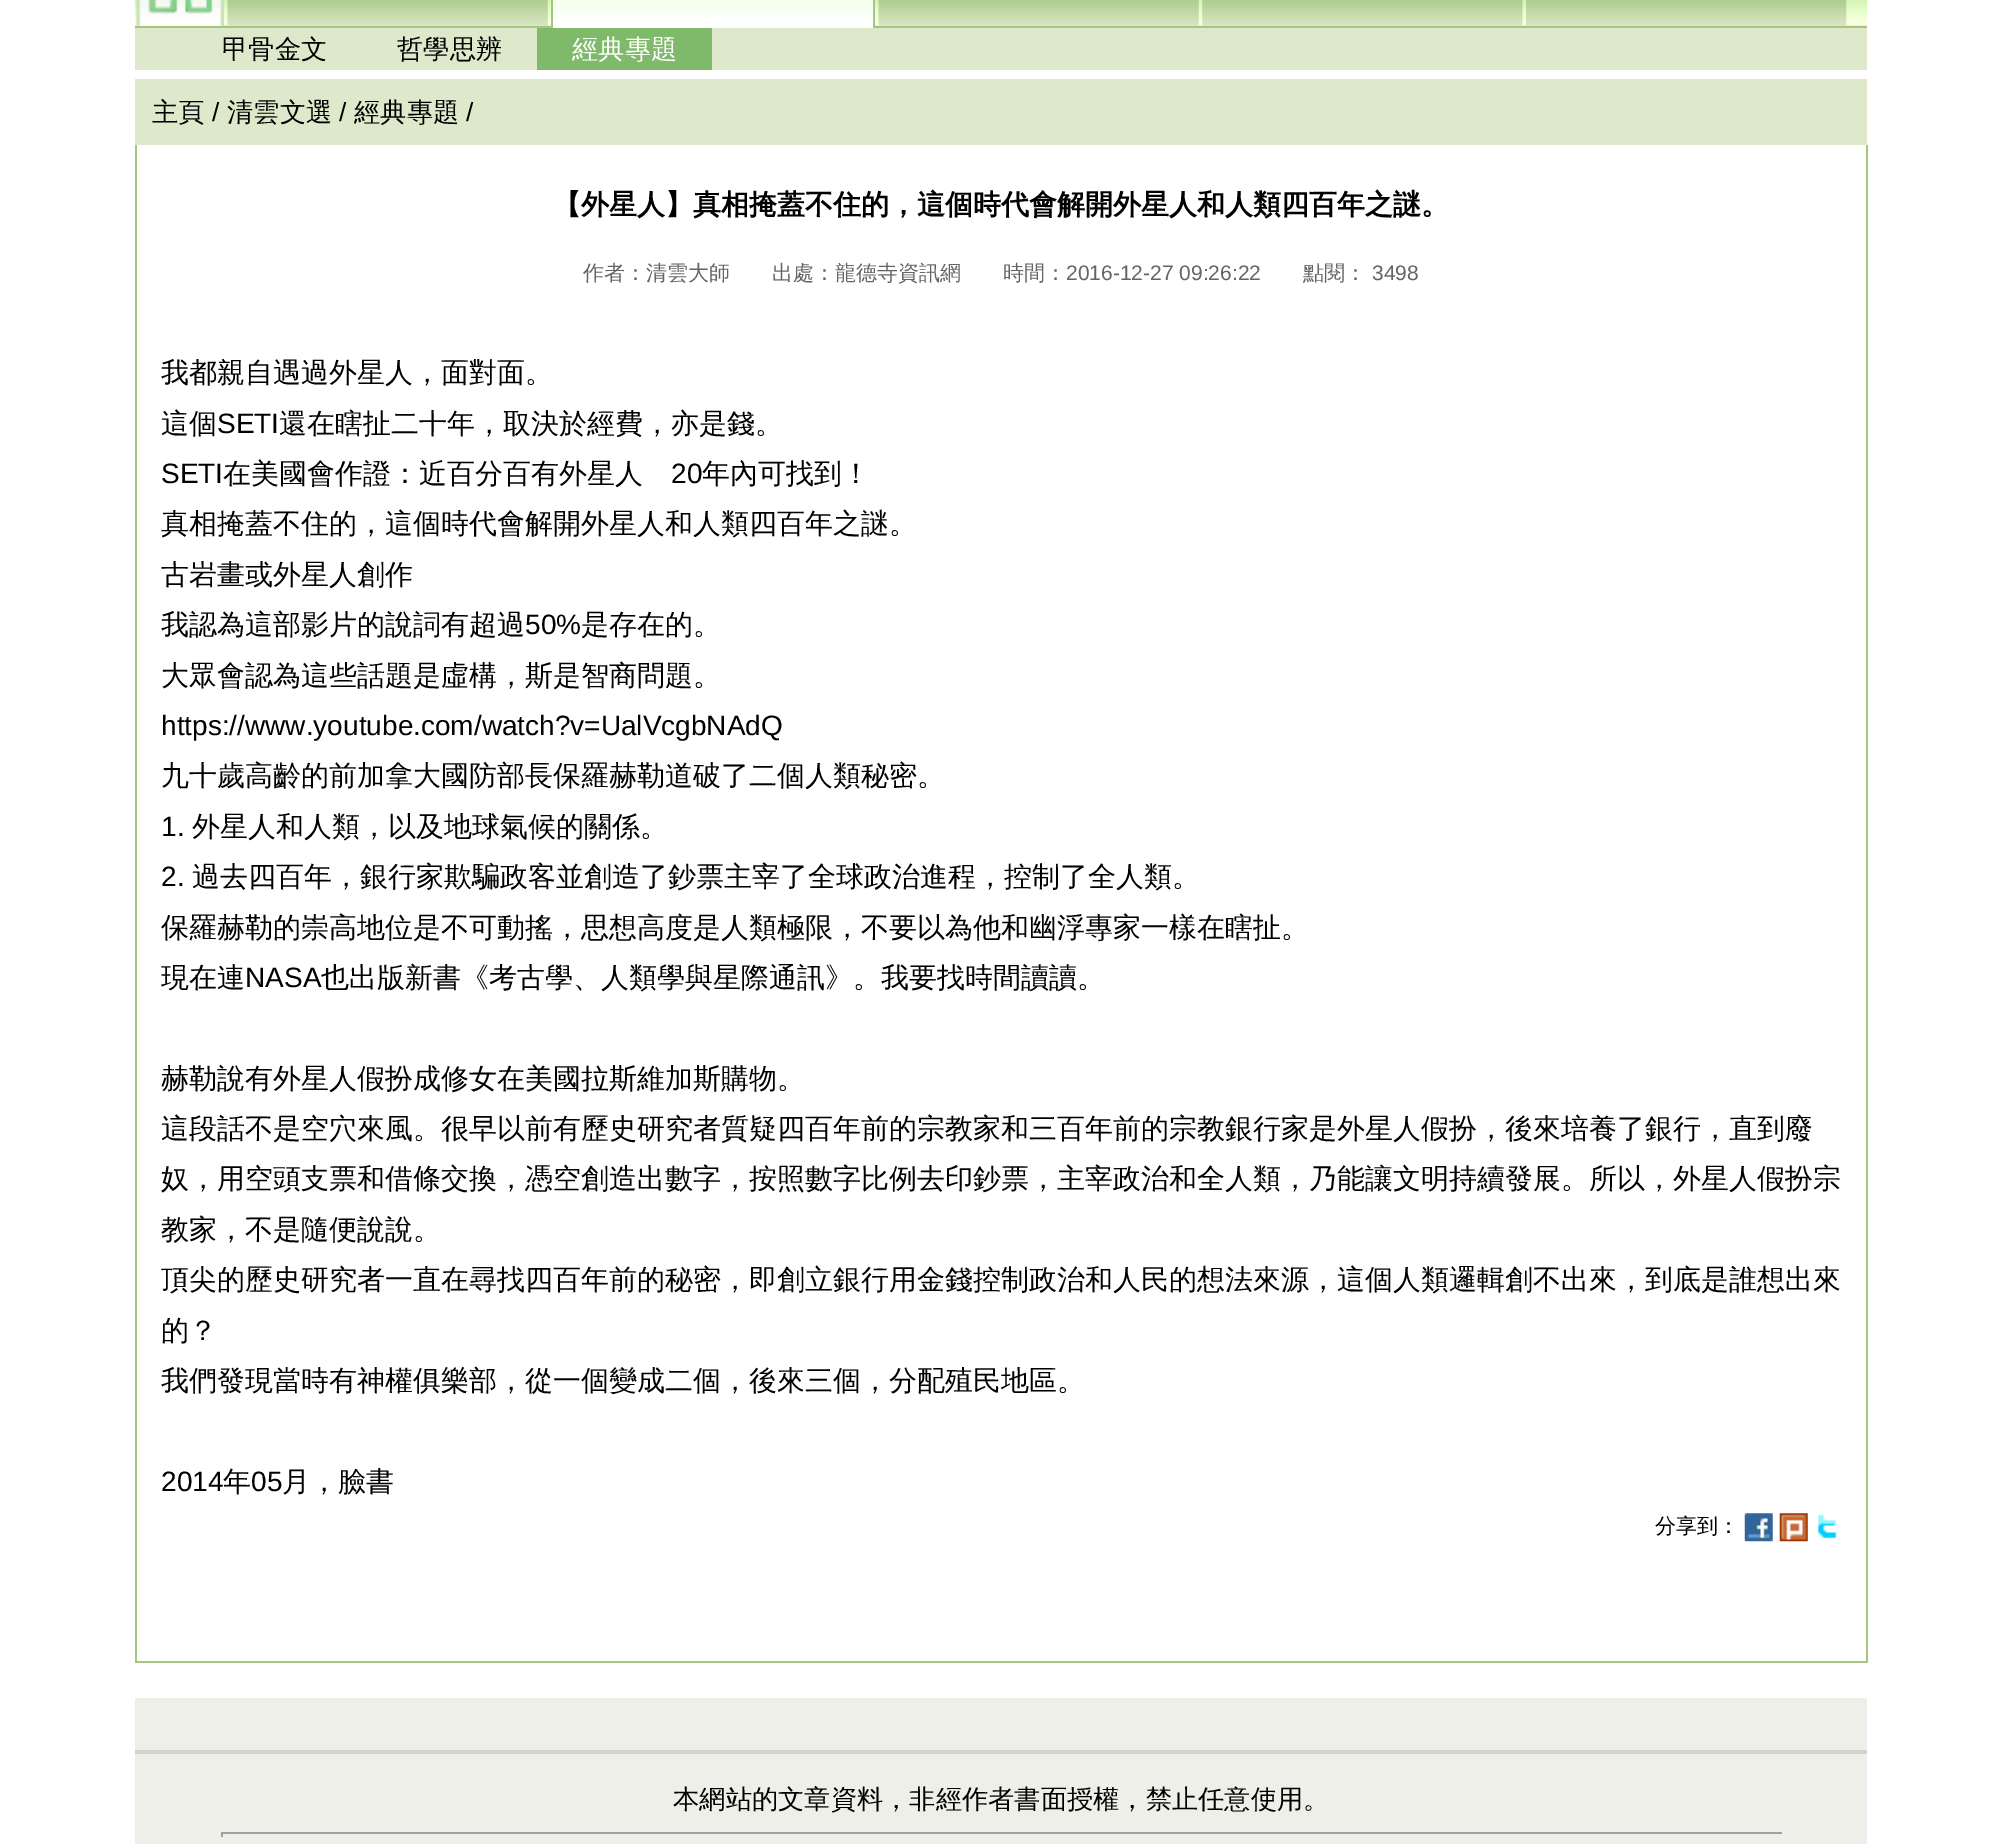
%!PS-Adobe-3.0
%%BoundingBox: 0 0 2001 1844
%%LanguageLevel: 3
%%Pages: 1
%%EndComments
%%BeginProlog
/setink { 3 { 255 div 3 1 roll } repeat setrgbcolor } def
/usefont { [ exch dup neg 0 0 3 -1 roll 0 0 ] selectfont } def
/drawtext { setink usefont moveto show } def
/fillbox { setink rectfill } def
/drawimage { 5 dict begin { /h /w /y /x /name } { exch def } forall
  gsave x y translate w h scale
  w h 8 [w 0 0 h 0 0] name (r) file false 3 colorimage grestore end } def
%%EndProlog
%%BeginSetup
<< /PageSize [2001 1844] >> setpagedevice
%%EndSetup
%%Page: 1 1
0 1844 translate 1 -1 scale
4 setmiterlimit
0 0 2001 1844 255 255 255 fillbox
135 25 1732 3 164 198 129 fillbox
(assets/img1.rgb) 134 0 1734 26 drawimage
(assets/img2.rgb) 136 0 88 26 drawimage
(assets/img3.rgb) 227 0 321 26 drawimage
553 17 320 11 255 255 255 fillbox
(assets/img4.rgb) 553 0 320 17 drawimage
164 198 129 setink
556 -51 moveto 870 -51 lineto 873 -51 875 -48 875 -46 curveto 875 28 lineto 551 28 lineto 551 -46 lineto 551 -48 554 -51 556 -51 curveto closepath 556 -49 moveto 870 -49 lineto 872 -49 873 -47 873 -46 curveto 873 28 lineto 553 28 lineto 553 -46 lineto 553 -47 555 -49 556 -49 curveto closepath eofill
(assets/img3.rgb) 878 0 321 26 drawimage
(assets/img5.rgb) 1202 0 321 26 drawimage
(assets/img6.rgb) 1526 0 321 26 drawimage
135 28 1732 42 221 233 202 fillbox
(甲骨金文) 222 58 /WenQuanYiZenHei-Medium 26.25 0 0 0 drawtext
(哲學思辨) 397 58 /WenQuanYiZenHei-Medium 26.25 0 0 0 drawtext
537 28 175 42 127 186 106 fillbox
(經典專題) 572 58 /WenQuanYiZenHei-Medium 26.25 255 255 255 drawtext
135 79 1732 66 221 233 202 fillbox
(主頁) 152 121 /WenQuanYiZenHei-Medium 26.25 0 0 0 drawtext
(/) 212 121 /LiberationSans-Regular 26.25 0 0 0 drawtext
(清雲文選) 227 121 /WenQuanYiZenHei-Medium 26.25 0 0 0 drawtext
(/) 339 121 /LiberationSans-Regular 26.25 0 0 0 drawtext
(經典專題) 354 121 /WenQuanYiZenHei-Medium 26.25 0 0 0 drawtext
(/) 466 121 /LiberationSans-Regular 26.25 0 0 0 drawtext
1866 145 2 1518 164 198 129 fillbox
135 1661 1732 2 164 198 129 fillbox
135 145 2 1518 164 198 129 fillbox
(【外星人】真相掩蓋不住的，這個時代會解開外星人和人類四百年之謎。) 553 214 /WenQuanYiZenHei-Bold 28 0 0 0 drawtext
(作者：清雲大師　　出處：龍德寺資訊網　　時間：) 583 280 /WenQuanYiZenHei-Medium 21 100 100 100 drawtext
(2016-12-27 09:26:22) 1066 280 /LiberationSans-Regular 21 100 100 100 drawtext
(點閱：) 1303 280 /WenQuanYiZenHei-Medium 21 100 100 100 drawtext
(3498) 1372 280 /LiberationSans-Regular 21 100 100 100 drawtext
(我都親自遇過外星人，面對面。) 161 382 /WenQuanYiZenHei-Medium 28 0 0 0 drawtext
(這個) 161 433 /WenQuanYiZenHei-Medium 28 0 0 0 drawtext
(SETI) 217 433 /LiberationSans-Regular 28 0 0 0 drawtext
(還在瞎扯二十年，取決於經費，亦是錢。) 279 433 /WenQuanYiZenHei-Medium 28 0 0 0 drawtext
(SETI) 161 483 /LiberationSans-Regular 28 0 0 0 drawtext
(在美國會作證：近百分百有外星人) 223 483 /WenQuanYiZenHei-Medium 28 0 0 0 drawtext
(20) 671 483 /LiberationSans-Regular 28 0 0 0 drawtext
(年內可找到！) 702 483 /WenQuanYiZenHei-Medium 28 0 0 0 drawtext
(真相掩蓋不住的，這個時代會解開外星人和人類四百年之謎。) 161 533 /WenQuanYiZenHei-Medium 28 0 0 0 drawtext
(古岩畫或外星人創作) 161 584 /WenQuanYiZenHei-Medium 28 0 0 0 drawtext
(我認為這部影片的說詞有超過) 161 634 /WenQuanYiZenHei-Medium 28 0 0 0 drawtext
(50%) 525 634 /LiberationSans-Regular 28 0 0 0 drawtext
(是存在的。) 581 634 /WenQuanYiZenHei-Medium 28 0 0 0 drawtext
(大眾會認為這些話題是虛構，斯是智商問題。) 161 685 /WenQuanYiZenHei-Medium 28 0 0 0 drawtext
(https://www.youtube.com/watch?v=UalVcgbNAdQ) 161 735 /LiberationSans-Regular 28 0 0 0 drawtext
(九十歲高齡的前加拿大國防部長保羅赫勒道破了二個人類秘密。) 161 785 /WenQuanYiZenHei-Medium 28 0 0 0 drawtext
(1.) 161 836 /LiberationSans-Regular 28 0 0 0 drawtext
(外星人和人類，以及地球氣候的關係。) 192 836 /WenQuanYiZenHei-Medium 28 0 0 0 drawtext
(2.) 161 886 /LiberationSans-Regular 28 0 0 0 drawtext
(過去四百年，銀行家欺騙政客並創造了鈔票主宰了全球政治進程，控制了全人類。) 192 886 /WenQuanYiZenHei-Medium 28 0 0 0 drawtext
(保羅赫勒的崇高地位是不可動搖，思想高度是人類極限，不要以為他和幽浮專家一樣在瞎扯。) 161 937 /WenQuanYiZenHei-Medium 28 0 0 0 drawtext
(現在連) 161 987 /WenQuanYiZenHei-Medium 28 0 0 0 drawtext
(NASA) 245 987 /LiberationSans-Regular 28 0 0 0 drawtext
(也出版新書《考古學、人類學與星際通訊》。我要找時間讀讀。) 321 987 /WenQuanYiZenHei-Medium 28 0 0 0 drawtext
(赫勒說有外星人假扮成修女在美國拉斯維加斯購物。) 161 1088 /WenQuanYiZenHei-Medium 28 0 0 0 drawtext
(這段話不是空穴來風。很早以前有歷史研究者質疑四百年前的宗教家和三百年前的宗教銀行家是外星人假扮，後來培養了銀行，直到廢) 161 1138 /WenQuanYiZenHei-Medium 28 0 0 0 drawtext
(奴，用空頭支票和借條交換，憑空創造出數字，按照數字比例去印鈔票，主宰政治和全人類，乃能讓文明持續發展。所以，外星人假扮宗) 161 1188 /WenQuanYiZenHei-Medium 28 0 0 0 drawtext
(教家，不是隨便說說。) 161 1239 /WenQuanYiZenHei-Medium 28 0 0 0 drawtext
(頂尖的歷史研究者一直在尋找四百年前的秘密，即創立銀行用金錢控制政治和人民的想法來源，這個人類邏輯創不出來，到底是誰想出來) 161 1289 /WenQuanYiZenHei-Medium 28 0 0 0 drawtext
(的？) 161 1340 /WenQuanYiZenHei-Medium 28 0 0 0 drawtext
(我們發現當時有神權俱樂部，從一個變成二個，後來三個，分配殖民地區。) 161 1390 /WenQuanYiZenHei-Medium 28 0 0 0 drawtext
(2014) 161 1491 /LiberationSans-Regular 28 0 0 0 drawtext
(年) 223 1491 /WenQuanYiZenHei-Medium 28 0 0 0 drawtext
(05) 251 1491 /LiberationSans-Regular 28 0 0 0 drawtext
(月，臉書) 282 1491 /WenQuanYiZenHei-Medium 28 0 0 0 drawtext
(分享到：) 1655 1533 /WenQuanYiZenHei-Medium 21 0 0 0 drawtext
(assets/img7.rgb) 1744 1513 29 29 drawimage
(assets/img8.rgb) 1779 1513 29 29 drawimage
(assets/img9.rgb) 1817 1514 20 25 drawimage
135 1698 1732 146 238 239 233 fillbox
135 1750 1732 4 214 209 205 fillbox
(本網站的文章資料，非經作者書面授權，禁止任意使用。) 673 1808 /WenQuanYiZenHei-Medium 26.25 0 0 0 drawtext
221 1832 1562 2 159 159 159 fillbox
1782 1832 2 5 238 238 238 fillbox
221 1836 1562 2 238 238 238 fillbox
221 1832 2 5 159 159 159 fillbox
showpage
%%EOF
